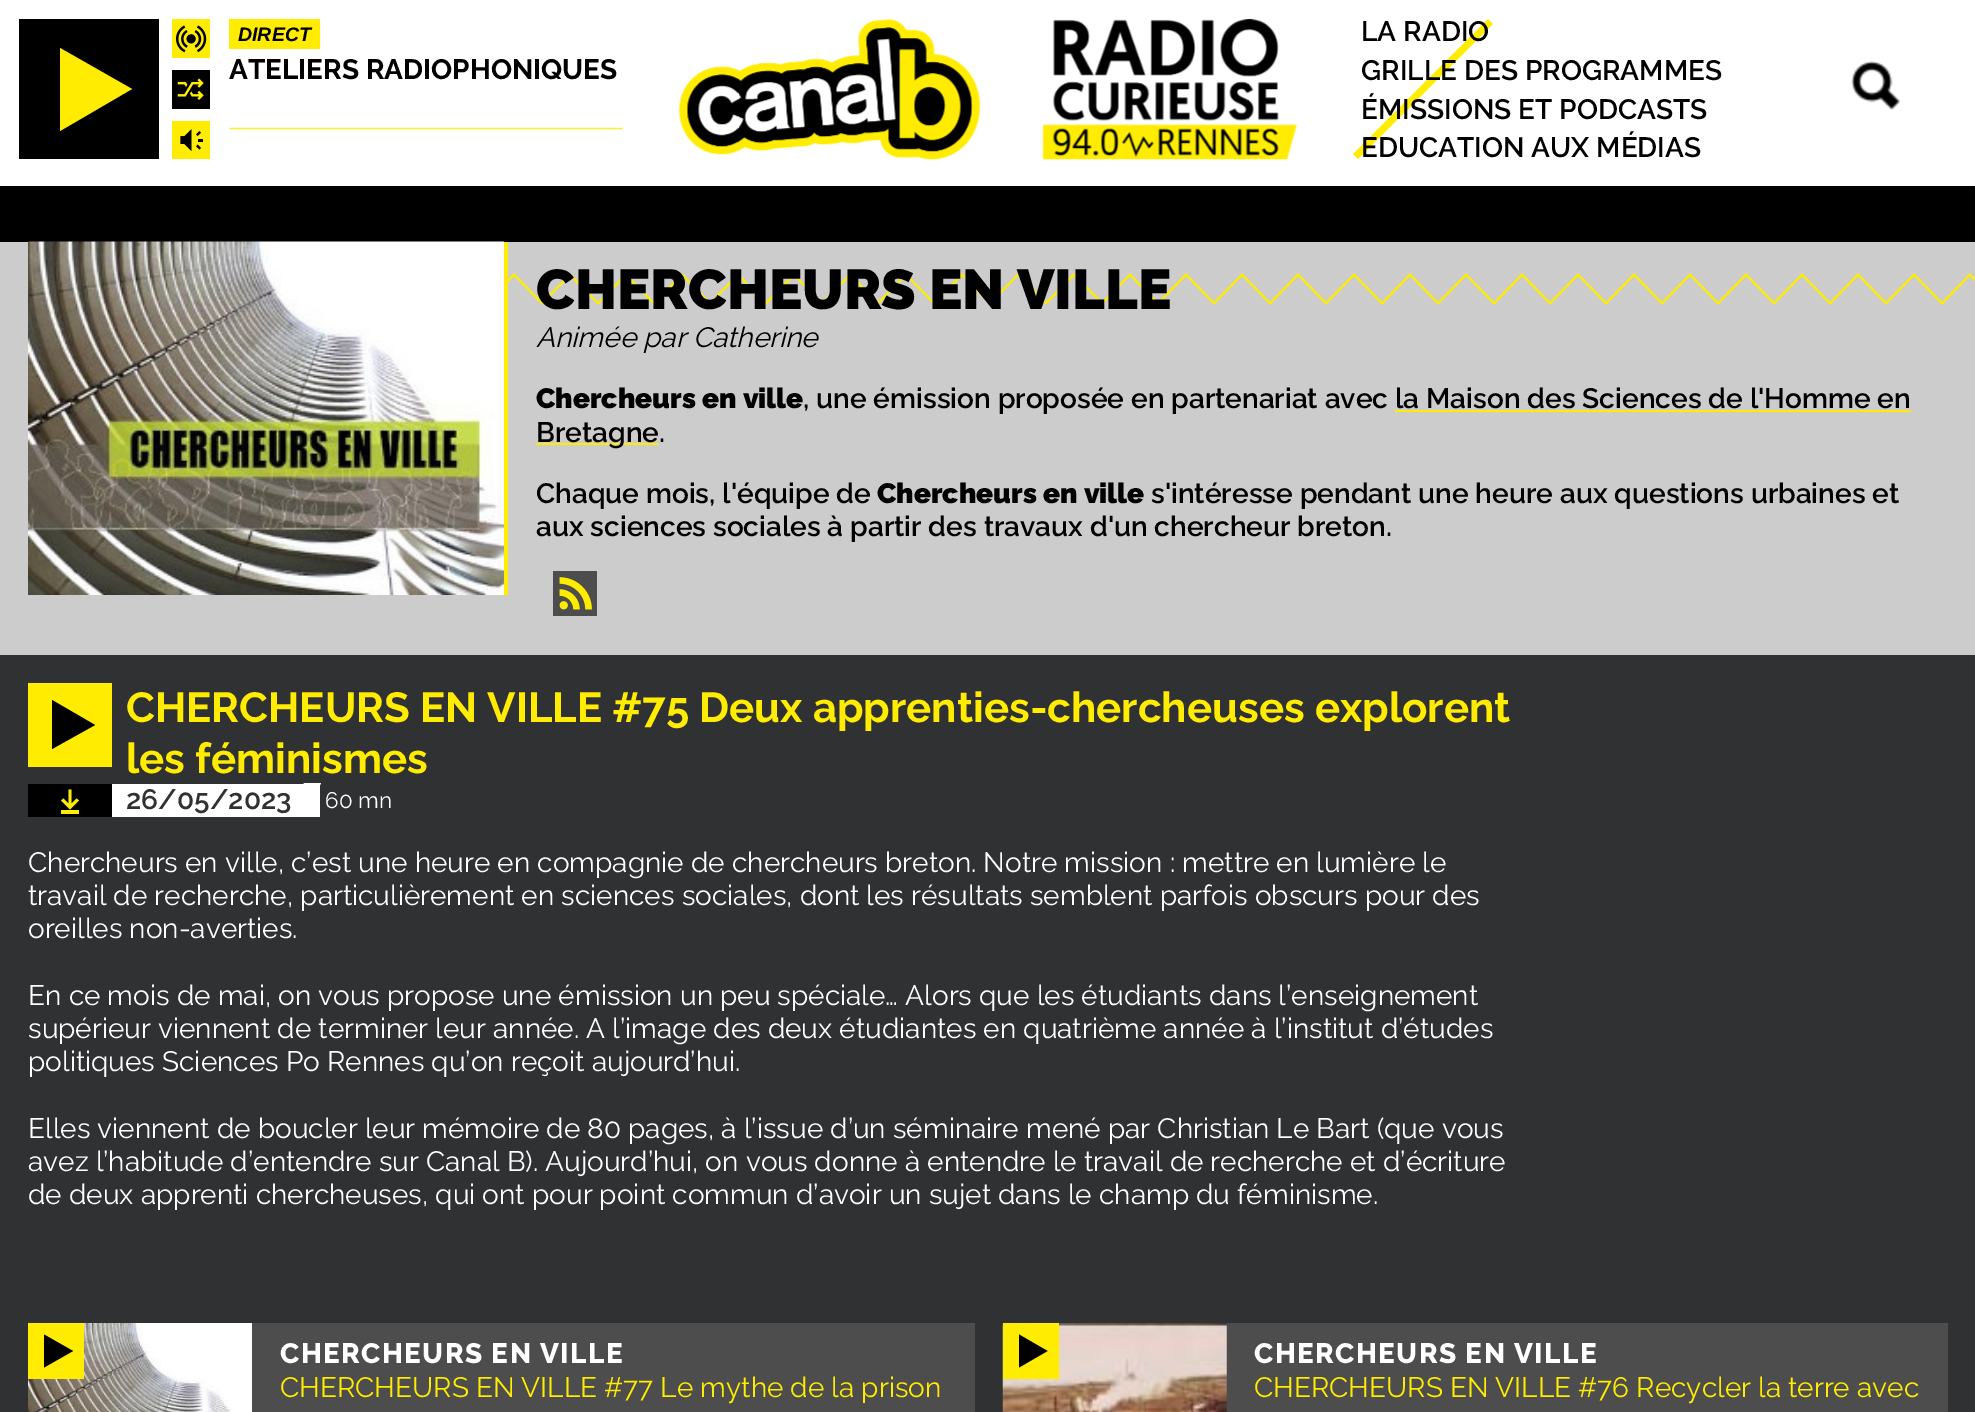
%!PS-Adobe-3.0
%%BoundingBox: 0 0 1975 1412
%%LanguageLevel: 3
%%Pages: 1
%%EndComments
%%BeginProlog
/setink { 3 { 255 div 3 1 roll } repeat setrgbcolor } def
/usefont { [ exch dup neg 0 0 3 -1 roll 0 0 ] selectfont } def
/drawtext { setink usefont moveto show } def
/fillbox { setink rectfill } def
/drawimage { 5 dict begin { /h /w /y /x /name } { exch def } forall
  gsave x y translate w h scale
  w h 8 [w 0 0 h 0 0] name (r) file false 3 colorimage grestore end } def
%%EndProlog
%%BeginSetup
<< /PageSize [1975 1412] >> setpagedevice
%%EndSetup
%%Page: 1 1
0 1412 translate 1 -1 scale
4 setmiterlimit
0 0 1975 1412 255 255 255 fillbox
19 19 140 140 0 0 0 fillbox
255 236 0 setink
60 48 moveto 132 89 lineto 60 131 lineto closepath fill
(assets/img1.rgb) 172 19 38 39 drawimage
(assets/img2.rgb) 172 70 38 39 drawimage
(assets/img3.rgb) 172 121 38 38 drawimage
229 19 91 30 255 236 1 fillbox
(DIRECT) 238 41 /LiberationSans-BoldItalic 19.5 0 0 0 drawtext
(ATELIERS RADIOPHONIQUES) 229 79 /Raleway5-Thin 28 0 0 0 drawtext
(assets/img4.rgb) 229 127 395 3 drawimage
(assets/img5.rgb) 678 19 303 141 drawimage
(assets/img6.rgb) 1042 19 256 141 drawimage
255 236 0 setink
1353 154 moveto 1488 19 lineto 1493 24 lineto 1358 159 lineto closepath fill
(LA RADIO) 1361 41 /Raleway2-Thin 28 0 0 0 drawtext
(GRILLE DES PROGRAMMES) 1361 80 /Raleway2-Thin 28 0 0 0 drawtext
(ÉMISSIONS ET PODCASTS) 1361 119 /Raleway2-Thin 28 0 0 0 drawtext
(EDUCATION AUX MÉDIAS) 1361 157 /Raleway2-Thin 28 0 0 0 drawtext
(assets/img7.rgb) 1851 61 50 49 drawimage
0 242 1975 413 204 204 204 fillbox
0 186 1975 56 0 0 0 fillbox
(assets/img8.rgb) 28 241 476 354 drawimage
504 242 4 353 255 236 1 fillbox
(assets/img9.rgb) 508 273 1467 32 drawimage
(CHERCHEURS EN VILLE) 536 309 /Raleway-Thin 56 0 0 0 drawtext
(Animée par Catherine) 536 347 /Raleway-ThinItalic 28 0 0 0 drawtext
(Chercheurs en ville) 536 408 /Raleway-Thin 28 0 0 0 drawtext
(, une émission proposée en partenariat avec la Maison des Sciences de l'Homme en) 803 408 /Raleway2-Thin 28 0 0 0 drawtext
536 443 122 2 255 236 1 fillbox
(Bretagne.) 536 442 /Raleway2-Thin 28 0 0 0 drawtext
1395 410 516 2 255 236 1 fillbox
(Chaque mois, l'équipe de) 536 503 /Raleway2-Thin 28 0 0 0 drawtext
(Chercheurs en ville) 877 503 /Raleway-Thin 28 0 0 0 drawtext
(s'intéresse pendant une heure aux questions urbaines et) 1151 503 /Raleway2-Thin 28 0 0 0 drawtext
(aux sciences sociales à partir des travaux d'un chercheur breton.) 536 536 /Raleway2-Thin 28 0 0 0 drawtext
(assets/img10.rgb) 553 571 44 45 drawimage
0 655 1975 757 48 49 51 fillbox
28 683 84 84 255 236 0 fillbox
0 0 0 setink
52 700 moveto 95 725 lineto 52 749 lineto closepath fill
(CHERCHEURS EN VILLE #75 Deux apprenties-chercheuses explorent) 126 722 /Raleway5-Thin 42 255 236 1 drawtext
(les féminismes) 126 773 /Raleway5-Thin 42 255 236 1 drawtext
28 784 84 33 0 0 0 fillbox
255 236 0 setink
79 800.5 moveto 76.5 798.5 lineto 71.5 803.5 lineto 71.5 789.5 lineto 68.5 789.5 lineto 68.5 803.5 lineto 63.5 798.5 lineto 61 800.5 lineto 70 809.5 lineto closepath fill
61 810 18 4 255 236 0 fillbox
112 784 208 33 255 255 255 fillbox
(26/05/2023) 126 809 /Raleway2-Thin 28 48 49 51 drawtext
255 255 255 setink
304 783 moveto 321 783 lineto 305.5 816.5 lineto 288.5 816.5 lineto closepath fill
(60 mn) 325 808 /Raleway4-Thin 22.5 255 255 255 drawtext
(Chercheurs en ville, c’est une heure en compagnie de chercheurs breton. Notre mission : mettre en lumière le) 28 872 /Raleway4-Thin 28 255 255 255 drawtext
(travail de recherche, particulièrement en sciences sociales, dont les résultats semblent parfois obscurs pour des) 28 905 /Raleway4-Thin 28 255 255 255 drawtext
(oreilles non-averties.) 28 938 /Raleway4-Thin 28 255 255 255 drawtext
(En ce mois de mai, on vous propose une émission un peu spéciale… Alors que les étudiants dans l’enseignement) 28 1005 /Raleway4-Thin 28 255 255 255 drawtext
(supérieur viennent de terminer leur année. A l’image des deux étudiantes en quatrième année à l’institut d’études) 28 1038 /Raleway4-Thin 28 255 255 255 drawtext
(politiques Sciences Po Rennes qu’on reçoit aujourd’hui.) 28 1071 /Raleway4-Thin 28 255 255 255 drawtext
(Elles viennent de boucler leur mémoire de 80 pages, à l’issue d’un séminaire mené par Christian Le Bart \(que vous) 28 1138 /Raleway4-Thin 28 255 255 255 drawtext
(avez l’habitude d’entendre sur Canal B\). Aujourd’hui, on vous donne à entendre le travail de recherche et d’écriture) 28 1171 /Raleway4-Thin 28 255 255 255 drawtext
(de deux apprenti chercheuses, qui ont pour point commun d’avoir un sujet dans le champ du féminisme.) 28 1204 /Raleway4-Thin 28 255 255 255 drawtext
252 1323 723 89 77 77 77 fillbox
(assets/img11.rgb) 28 1323 224 89 drawimage
28 1323 56 56 255 236 0 fillbox
0 0 0 setink
44 1334.5 moveto 73 1351 lineto 44 1367.5 lineto closepath fill
/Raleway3-Thin 28 usefont
255 255 255 setink
280 1363 moveto 1.4 0 (CHERCHEURS EN VILLE) ashow
(CHERCHEURS EN VILLE #77 Le mythe de la prison) 280 1397 /Raleway4-Thin 28 255 236 1 drawtext
1226 1323 722 89 77 77 77 fillbox
(assets/img12.rgb) 1002 1323 225 89 drawimage
1003 1323 56 56 255 236 0 fillbox
0 0 0 setink
1019 1334.5 moveto 1047.5 1351 lineto 1019 1367.5 lineto closepath fill
/Raleway3-Thin 28 usefont
255 255 255 setink
1254 1363 moveto 1.4 0 (CHERCHEURS EN VILLE) ashow
(CHERCHEURS EN VILLE #76 Recycler la terre avec) 1254 1397 /Raleway4-Thin 28 255 236 1 drawtext
showpage
%%EOF
